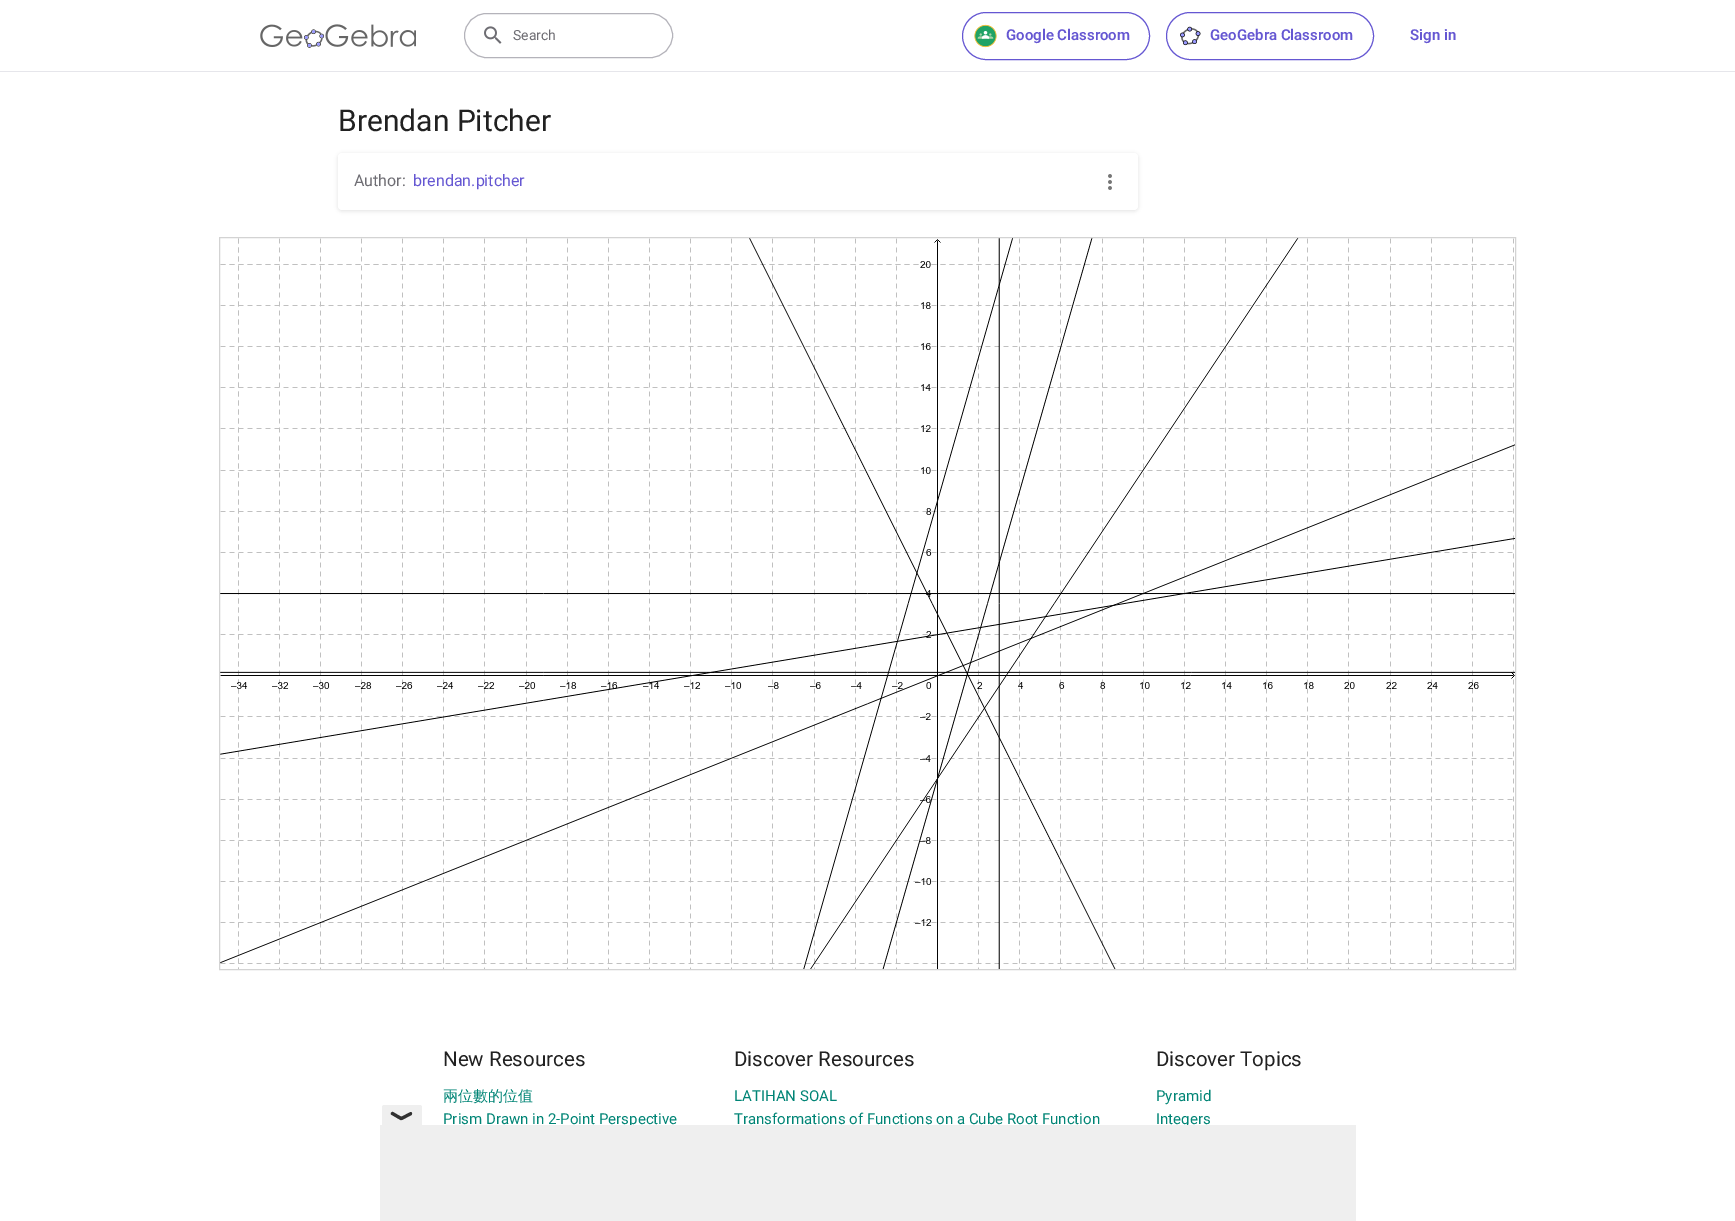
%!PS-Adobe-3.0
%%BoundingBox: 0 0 1735 1221
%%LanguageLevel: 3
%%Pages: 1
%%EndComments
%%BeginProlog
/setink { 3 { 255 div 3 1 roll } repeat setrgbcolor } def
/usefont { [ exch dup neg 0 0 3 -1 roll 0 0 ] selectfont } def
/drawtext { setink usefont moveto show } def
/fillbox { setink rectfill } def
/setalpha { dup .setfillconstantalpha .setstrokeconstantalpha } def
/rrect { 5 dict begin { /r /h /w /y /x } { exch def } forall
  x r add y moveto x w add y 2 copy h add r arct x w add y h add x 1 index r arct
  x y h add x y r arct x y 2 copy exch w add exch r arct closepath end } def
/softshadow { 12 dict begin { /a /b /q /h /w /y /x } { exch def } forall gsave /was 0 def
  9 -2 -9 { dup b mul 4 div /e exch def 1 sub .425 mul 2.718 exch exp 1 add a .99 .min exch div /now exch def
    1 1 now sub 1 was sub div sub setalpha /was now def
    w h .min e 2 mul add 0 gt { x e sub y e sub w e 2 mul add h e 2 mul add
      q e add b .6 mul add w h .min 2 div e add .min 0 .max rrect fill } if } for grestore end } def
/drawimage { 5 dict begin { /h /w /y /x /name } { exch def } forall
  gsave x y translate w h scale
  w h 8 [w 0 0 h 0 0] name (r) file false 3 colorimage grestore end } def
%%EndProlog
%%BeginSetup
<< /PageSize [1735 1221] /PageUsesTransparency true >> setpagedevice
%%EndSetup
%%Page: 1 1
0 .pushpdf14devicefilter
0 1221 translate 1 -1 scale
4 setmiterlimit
0 0 1735 1221 255 255 255 fillbox
0 71 1735 1 230 230 235 fillbox
(assets/img1.rgb) 260 24 156 24 drawimage
180 179 186 setink
464.5 13.5 208 44 22 rrect stroke
(assets/img2.rgb) 484 26 18 18 drawimage
(Search) 513 40 /Roboto-Regular 14 110 109 115 drawtext
101 87 210 setink
962.5 12.5 187 47 23.5 rrect stroke
(assets/img3.rgb) 974 24 23 24 drawimage
(Google Classroom) 1006 40 /Roboto-SemiBold 15 101 87 210 drawtext
1166.5 12.5 207 47 23.5 rrect stroke
(assets/img4.rgb) 1180 26 21 20 drawimage
(GeoGebra Classroom) 1210 40 /Roboto-SemiBold 15 101 87 210 drawtext
(Sign in) 1410 40 /Roboto-SemiBold 15 101 87 210 drawtext
(Brendan Pitcher) 338 131 /Roboto-Regular 30 33 33 33 drawtext
28 28 31 setink
338 154 800 57 4 2 0.14 softshadow
255 255 255 setink
338 153 800 57 4 rrect fill
(Author:) 354 186 /Roboto-Regular 16 110 109 115 drawtext
(brendan.pitcher) 413 186 /Roboto-Regular 16 101 87 210 drawtext
(assets/img5.rgb) 1108 174 4 16 drawimage
(assets/img6.rgb) 220 238 1295 731 drawimage
211 211 211 setink
219.5 237.5 1296 732 rectstroke
(New Resources) 443 1066 /Roboto-Regular 20.5 33 33 33 drawtext
(兩位數的位值) 443 1101 /WenQuanYiZenHei-Medium 15 0 132 117 drawtext
(Prism Drawn in 2-Point Perspective) 443 1124 /Roboto-Regular 15 0 132 117 drawtext
(Discover Resources) 734 1066 /Roboto-Regular 20.5 33 33 33 drawtext
(LATIHAN SOAL) 734 1101 /Roboto-Regular 15 0 132 117 drawtext
(Transformations of Functions on a Cube Root Function) 734 1124 /Roboto-Regular 15 0 132 117 drawtext
(Discover Topics) 1156 1066 /Roboto-Regular 20.5 33 33 33 drawtext
(Pyramid) 1156 1101 /Roboto-Regular 15 0 132 117 drawtext
(Integers) 1156 1124 /Roboto-Regular 15 0 132 117 drawtext
239 239 239 setink
384 1105 moveto 420 1105 lineto 421 1105 422 1106 422 1107 curveto 422 1125 lineto 382 1125 lineto 382 1107 lineto 382 1106 383 1105 384 1105 curveto closepath fill
49 49 49 setink
393 1112 moveto 402.5 1117.5 lineto 403 1119 401.5 1120.5 400.5 1120 curveto 391 1114.5 lineto 390 1113 392 1111.5 393 1112 curveto closepath fill
401 1117 moveto 410.5 1112 lineto 412 1112 412.5 1114 411.5 1115 curveto 402 1120 lineto 400.5 1120 400 1118 401 1117 curveto closepath fill
380 1125 976 96 239 239 239 fillbox
.poppdf14devicefilter showpage
%%EOF
